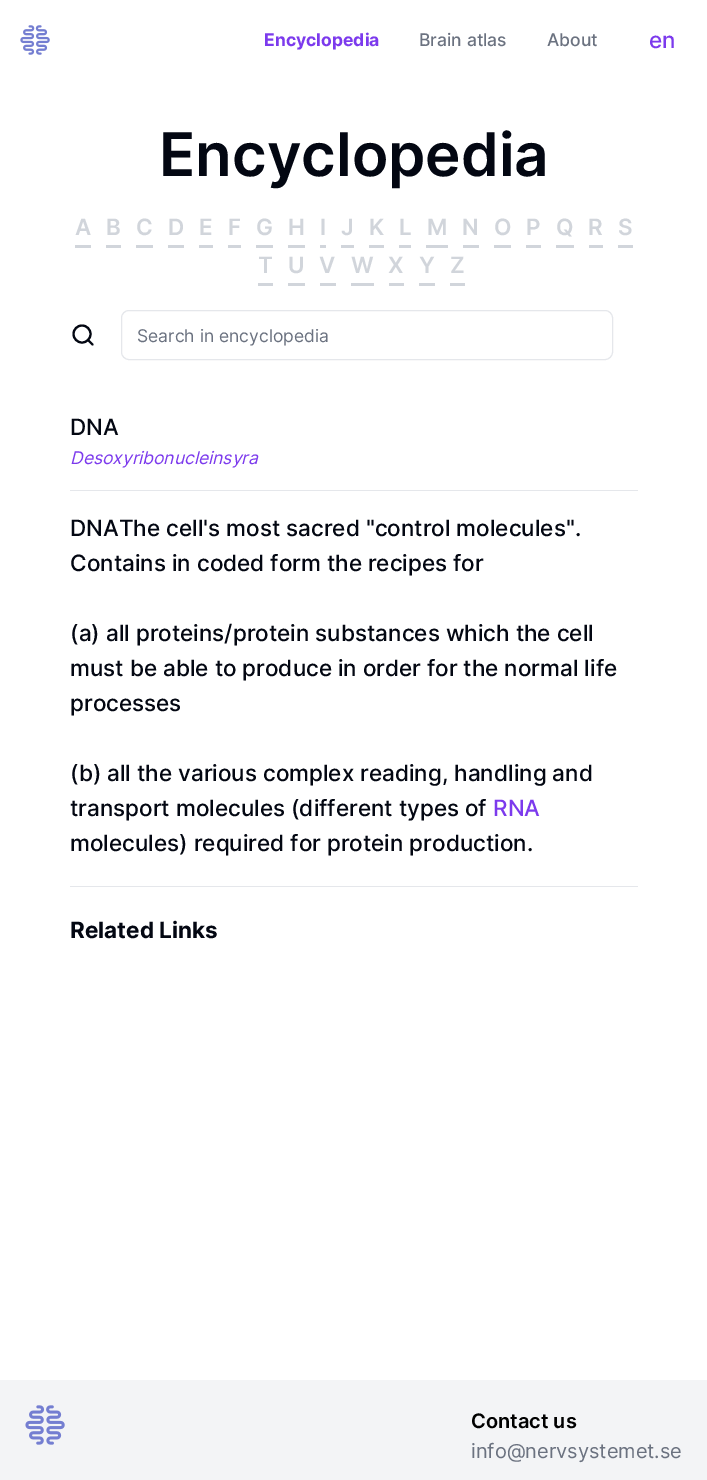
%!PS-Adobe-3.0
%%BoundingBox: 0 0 707 1480
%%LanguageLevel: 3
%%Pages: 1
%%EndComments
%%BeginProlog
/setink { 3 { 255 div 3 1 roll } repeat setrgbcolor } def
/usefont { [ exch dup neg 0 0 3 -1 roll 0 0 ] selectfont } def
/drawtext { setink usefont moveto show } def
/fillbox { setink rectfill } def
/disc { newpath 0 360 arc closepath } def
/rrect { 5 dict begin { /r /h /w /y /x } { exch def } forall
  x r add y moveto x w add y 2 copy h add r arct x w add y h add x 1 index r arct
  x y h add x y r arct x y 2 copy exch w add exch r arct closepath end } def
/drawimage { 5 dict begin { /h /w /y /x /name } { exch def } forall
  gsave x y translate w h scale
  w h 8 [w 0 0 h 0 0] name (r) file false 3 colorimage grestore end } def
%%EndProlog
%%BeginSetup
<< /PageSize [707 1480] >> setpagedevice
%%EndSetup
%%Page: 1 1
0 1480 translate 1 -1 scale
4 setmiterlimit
0 0 707 1480 255 255 255 fillbox
(assets/img1.rgb) 20 25 30 30 drawimage
(Encyclopedia) 264 46 /Inter-Bold 17.5 124 58 237 drawtext
(Brain atlas) 419 46 /Inter-Medium 17.5 107 114 128 drawtext
(About) 547 46 /Inter-Medium 17.5 107 114 128 drawtext
(en) 649 48 /Inter-Medium 22.5 124 58 237 drawtext
(Encyclopedia) 159 176 /Inter-SemiBold 60 3 7 18 drawtext
(A) 75 235 /Inter-SemiBold 22.5 209 213 219 drawtext
75 245 16 3 209 213 219 fillbox
(B) 106 235 /Inter-SemiBold 22.5 209 213 219 drawtext
106 245 15 3 209 213 219 fillbox
(C) 136 235 /Inter-SemiBold 22.5 209 213 219 drawtext
136 245 17 3 209 213 219 fillbox
(D) 168 235 /Inter-SemiBold 22.5 209 213 219 drawtext
168 245 16 3 209 213 219 fillbox
(E) 199 235 /Inter-SemiBold 22.5 209 213 219 drawtext
199 245 14 3 209 213 219 fillbox
(F) 228 235 /Inter-SemiBold 22.5 209 213 219 drawtext
228 245 13 3 209 213 219 fillbox
(G) 256 235 /Inter-SemiBold 22.5 209 213 219 drawtext
256 245 17 3 209 213 219 fillbox
(H) 288 235 /Inter-SemiBold 22.5 209 213 219 drawtext
288 245 17 3 209 213 219 fillbox
(I) 320 235 /Inter-SemiBold 22.5 209 213 219 drawtext
320 245 6 3 209 213 219 fillbox
(J) 341 235 /Inter-SemiBold 22.5 209 213 219 drawtext
341 245 13 3 209 213 219 fillbox
(K) 369 235 /Inter-SemiBold 22.5 209 213 219 drawtext
369 245 15 3 209 213 219 fillbox
(L) 399 235 /Inter-SemiBold 22.5 209 213 219 drawtext
399 245 12 3 209 213 219 fillbox
(M) 427 235 /Inter-SemiBold 22.5 209 213 219 drawtext
426 245 22 3 209 213 219 fillbox
(N) 462 235 /Inter-SemiBold 22.5 209 213 219 drawtext
463 245 16 3 209 213 219 fillbox
(O) 494 235 /Inter-SemiBold 22.5 209 213 219 drawtext
494 245 17 3 209 213 219 fillbox
(P) 526 235 /Inter-SemiBold 22.5 209 213 219 drawtext
526 245 15 3 209 213 219 fillbox
(Q) 556 235 /Inter-SemiBold 22.5 209 213 219 drawtext
556 245 18 3 209 213 219 fillbox
(R) 588 235 /Inter-SemiBold 22.5 209 213 219 drawtext
589 245 14 3 209 213 219 fillbox
(S) 618 235 /Inter-SemiBold 22.5 209 213 219 drawtext
618 245 15 3 209 213 219 fillbox
(T) 258 273 /Inter-SemiBold 22.5 209 213 219 drawtext
258 283 15 3 209 213 219 fillbox
(U) 288 273 /Inter-SemiBold 22.5 209 213 219 drawtext
288 283 17 3 209 213 219 fillbox
(V) 319 273 /Inter-SemiBold 22.5 209 213 219 drawtext
320 283 16 3 209 213 219 fillbox
(W) 351 273 /Inter-SemiBold 22.5 209 213 219 drawtext
351 283 23 3 209 213 219 fillbox
(X) 388 273 /Inter-SemiBold 22.5 209 213 219 drawtext
389 283 15 3 209 213 219 fillbox
(Y) 419 273 /Inter-SemiBold 22.5 209 213 219 drawtext
419 283 16 3 209 213 219 fillbox
(Z) 450 273 /Inter-SemiBold 22.5 209 213 219 drawtext
450 283 15 3 209 213 219 fillbox
3 7 18 setink
2.1 setlinewidth
82 334 8.5 disc stroke
1 setlinecap
1 setlinejoin
92.5 344.5 moveto 88 340 lineto stroke
229 231 235 setink
1 setlinewidth
0 setlinecap
0 setlinejoin
121.5 310.5 491 49 7.5 rrect stroke
(Search in encyclopedia) 137 342 /Inter-Regular 17.5 107 114 128 drawtext
(DNA) 70 435 /Inter-Medium 22.5 3 7 18 drawtext
(Desoxyribonucleinsyra) 70 464 /Inter-Italic 17.5 124 58 237 drawtext
70 490 568 1 229 231 235 fillbox
(DNAThe cell's most sacred "control molecules".) 70 536 /Inter-Medium 22.5 3 7 18 drawtext
(Contains in coded form the recipes for) 70 571 /Inter-Medium 22.5 3 7 18 drawtext
(\(a\) all proteins/protein substances which the cell) 70 641 /Inter-Medium 22.5 3 7 18 drawtext
(must be able to produce in order for the normal life) 70 676 /Inter-Medium 22.5 3 7 18 drawtext
(processes) 70 711 /Inter-Medium 22.5 3 7 18 drawtext
(\(b\) all the various complex reading, handling and) 70 781 /Inter-Medium 22.5 3 7 18 drawtext
(transport molecules \(different types of) 70 816 /Inter-Medium 22.5 3 7 18 drawtext
(RNA) 493 816 /Inter-Medium 22.5 124 58 237 drawtext
(molecules\) required for protein production.) 70 851 /Inter-Medium 22.5 3 7 18 drawtext
70 886 568 1 229 231 235 fillbox
(Related Links) 70 938 /Inter-Bold 22.5 3 7 18 drawtext
0 1380 707 100 243 244 246 fillbox
(assets/img2.rgb) 25 1405 40 40 drawimage
(Contact us) 471 1428 /Inter-SemiBold 20 0 0 0 drawtext
(info@nervsystemet.se) 471 1458 /Inter-Regular 20 107 114 128 drawtext
showpage
%%EOF
